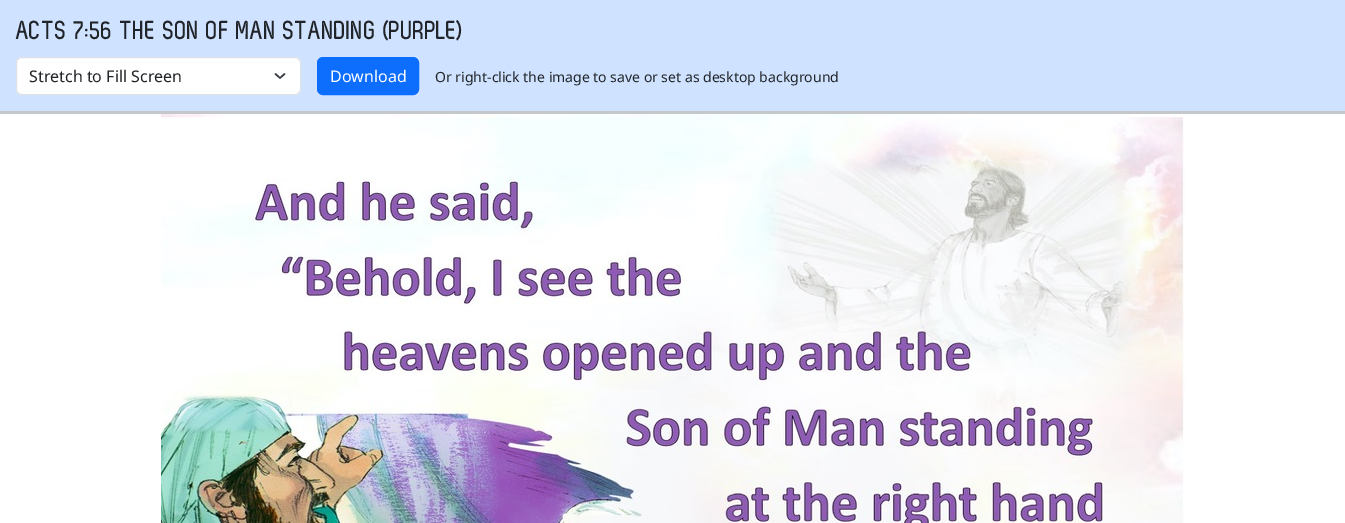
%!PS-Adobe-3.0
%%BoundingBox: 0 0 1345 523
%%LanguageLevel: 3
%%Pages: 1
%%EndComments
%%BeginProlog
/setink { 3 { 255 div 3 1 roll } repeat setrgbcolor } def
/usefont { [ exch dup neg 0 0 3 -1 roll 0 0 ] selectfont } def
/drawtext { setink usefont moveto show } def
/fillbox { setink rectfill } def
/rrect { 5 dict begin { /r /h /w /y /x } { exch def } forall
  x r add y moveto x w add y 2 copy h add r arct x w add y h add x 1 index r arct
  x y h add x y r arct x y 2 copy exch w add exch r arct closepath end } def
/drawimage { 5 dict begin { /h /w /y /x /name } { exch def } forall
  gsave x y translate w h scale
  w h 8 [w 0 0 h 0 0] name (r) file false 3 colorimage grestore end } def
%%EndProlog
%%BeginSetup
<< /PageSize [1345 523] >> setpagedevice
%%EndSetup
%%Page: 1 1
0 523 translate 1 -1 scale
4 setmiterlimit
0 0 1345 523 255 255 255 fillbox
0 0 1345 111 207 226 255 fillbox
0 111 1345 3 196 200 203 fillbox
(ACTS 7:56 THE SON OF MAN STANDING \(PURPLE\)) 16 39 /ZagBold-Bold 26 33 37 41 drawtext
255 255 255 setink
16 57 285 38 6 rrect fill
52 58 64 setink
1.5 setlinewidth
1 setlinecap
1 setlinejoin
275.5 74 moveto 280 78 lineto 284.5 74 lineto stroke
222 226 230 setink
1 setlinewidth
0 setlinecap
0 setlinejoin
16.5 57.5 284 37 5.5 rrect stroke
(Stretch to Fill Screen) 29 82 /NotoSans-Regular 16 33 37 41 drawtext
13 110 253 setink
317.5 57.5 101 37 5.5 rrect gsave fill grestore
stroke
(Download) 330 82 /NotoSans-Regular 16 255 255 255 drawtext
(Or right-click the image to save or set as desktop background) 435 82 /NotoSans-Regular 14 33 37 41 drawtext
(assets/img1.rgb) 161 114 1024 409 drawimage
showpage
%%EOF
